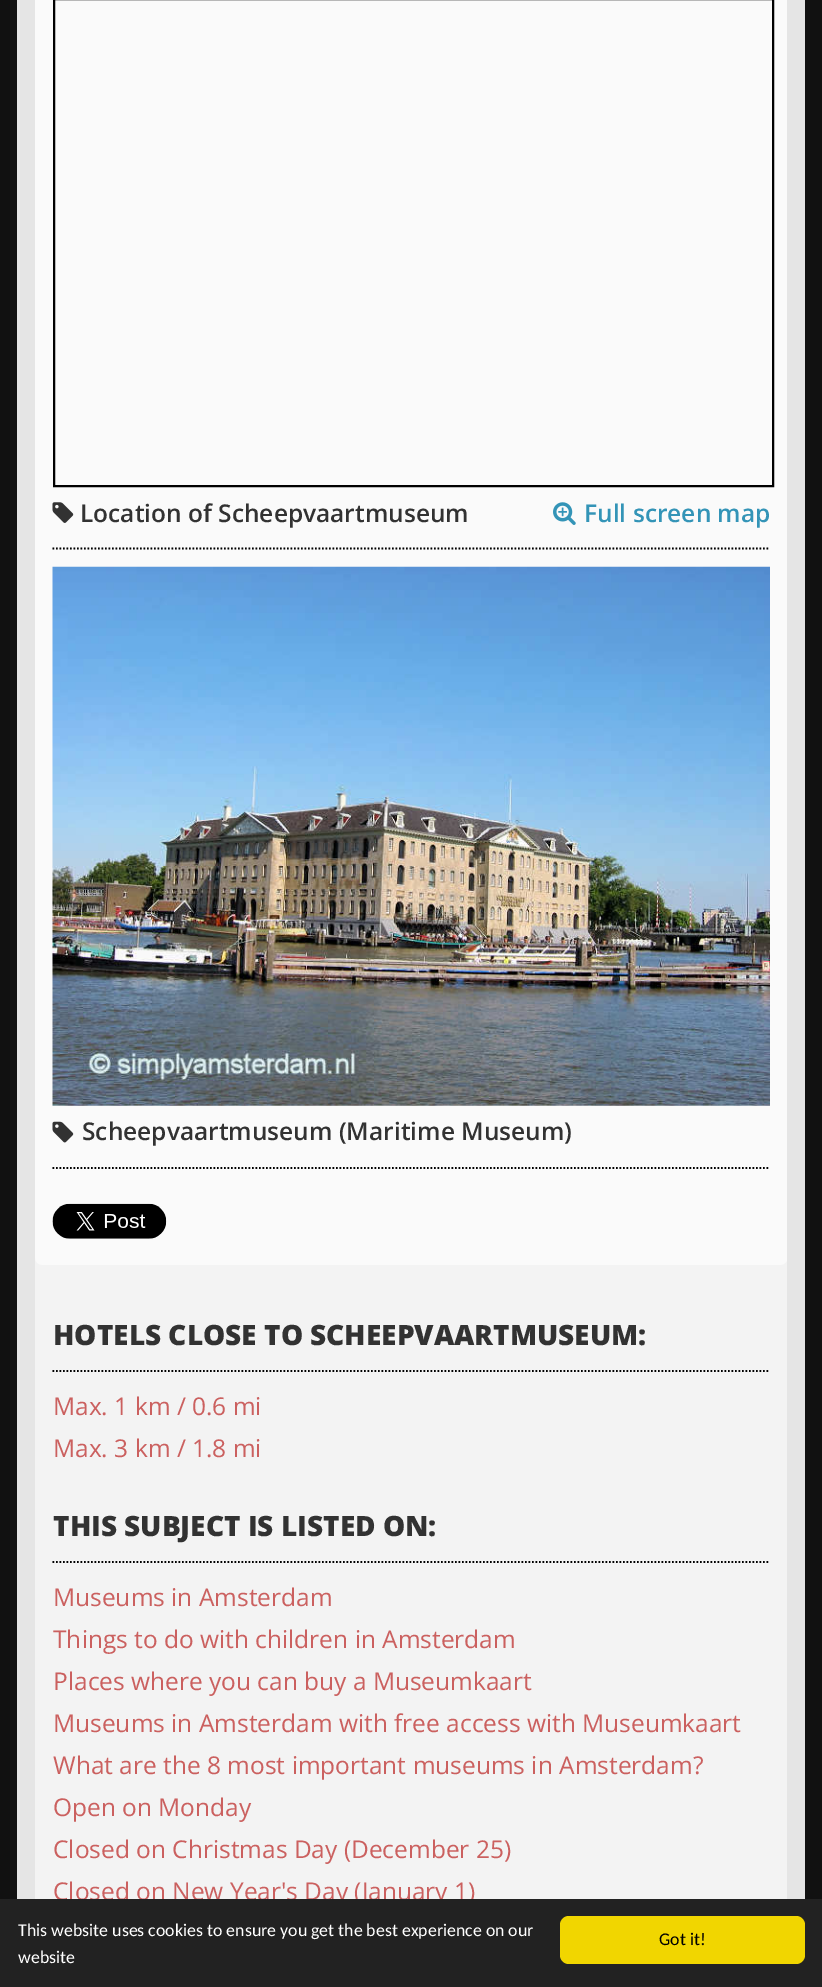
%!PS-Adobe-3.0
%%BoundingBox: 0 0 822 1987
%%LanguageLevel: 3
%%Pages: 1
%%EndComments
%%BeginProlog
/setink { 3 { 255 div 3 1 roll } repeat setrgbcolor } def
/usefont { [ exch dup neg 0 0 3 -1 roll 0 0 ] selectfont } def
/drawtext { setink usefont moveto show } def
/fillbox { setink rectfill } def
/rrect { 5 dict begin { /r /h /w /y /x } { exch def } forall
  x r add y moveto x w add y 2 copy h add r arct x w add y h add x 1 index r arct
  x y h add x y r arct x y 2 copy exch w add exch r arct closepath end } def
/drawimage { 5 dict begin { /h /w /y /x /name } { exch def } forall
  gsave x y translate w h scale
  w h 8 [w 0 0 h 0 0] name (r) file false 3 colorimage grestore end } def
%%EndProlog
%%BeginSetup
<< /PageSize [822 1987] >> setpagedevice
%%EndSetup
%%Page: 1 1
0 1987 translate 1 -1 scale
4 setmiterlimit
0 0 822 1987 17 17 17 fillbox
17 0 788 1899 229 229 229 fillbox
35 0 752 1899 243 243 243 fillbox
(assets/img1.rgb) 35 0 752 1265 drawimage
0 0 0 setink
2 setlinewidth
54 -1 719 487 rectstroke
(assets/img2.rgb) 52 502 22 21 drawimage
(Location of Scheepvaartmuseum) 80 522 /OpenSans-SemiBold 24.5 50 50 50 drawtext
(assets/img3.rgb) 553 502 23 23 drawimage
(Full screen map) 584 522 /OpenSans-SemiBold 24.5 51 148 183 drawtext
0 0 0 setink
1.8 setlinewidth
[1.75 1.75] 0 setdash
52.5 548.5 moveto 770 548.5 lineto stroke
(assets/img4.rgb) 52 566 718 540 drawimage
(assets/img5.rgb) 52 1121 22 22 drawimage
(Scheepvaartmuseum \(Maritime Museum\)) 82 1140 /OpenSans-SemiBold 24.5 50 50 50 drawtext
0 0 0 setink
52.5 1168 moveto 770 1168 lineto stroke
(assets/img6.rgb) 52 1203 115 36 drawimage
(HOTELS CLOSE TO SCHEEPVAARTMUSEUM:) 53 1345 /OpenSans-ExtraBold 28 50 50 50 drawtext
0 0 0 setink
52.5 1371 moveto 770 1371 lineto stroke
(Max. 1 km / 0.6 mi) 53 1415 /OpenSans-Regular 24.5 203 96 95 drawtext
(Max. 3 km / 1.8 mi) 53 1457 /OpenSans-Regular 24.5 203 96 95 drawtext
(THIS SUBJECT IS LISTED ON:) 53 1536 /OpenSans-ExtraBold 28 50 50 50 drawtext
0 0 0 setink
52.5 1562 moveto 770 1562 lineto stroke
(Museums in Amsterdam) 53 1606 /OpenSans-Regular 24.5 203 96 95 drawtext
(Things to do with children in Amsterdam) 53 1648 /OpenSans-Regular 24.5 203 96 95 drawtext
(Places where you can buy a Museumkaart) 53 1690 /OpenSans-Regular 24.5 203 96 95 drawtext
(Museums in Amsterdam with free access with Museumkaart) 53 1732 /OpenSans-Regular 24.5 203 96 95 drawtext
(What are the 8 most important museums in Amsterdam?) 53 1774 /OpenSans-Regular 24.5 203 96 95 drawtext
(Open on Monday) 53 1816 /OpenSans-Regular 24.5 203 96 95 drawtext
(Closed on Christmas Day \(December 25\)) 53 1858 /OpenSans-Regular 24.5 203 96 95 drawtext
(Closed on New Year's Day \(January 1\)) 53 1900 /OpenSans-Regular 24.5 203 96 95 drawtext
0 1899 822 88 34 34 34 fillbox
(This website uses cookies to ensure you get the best experience on our) 18 1936 /Carlito-Regular 17.85 255 255 255 drawtext
(website) 18 1963 /Carlito-Regular 17.85 255 255 255 drawtext
241 214 0 setink
560 1916 245 48 9 rrect fill
(Got it!) 659 1945 /Carlito-Regular 17.85 0 0 0 drawtext
showpage
%%EOF
